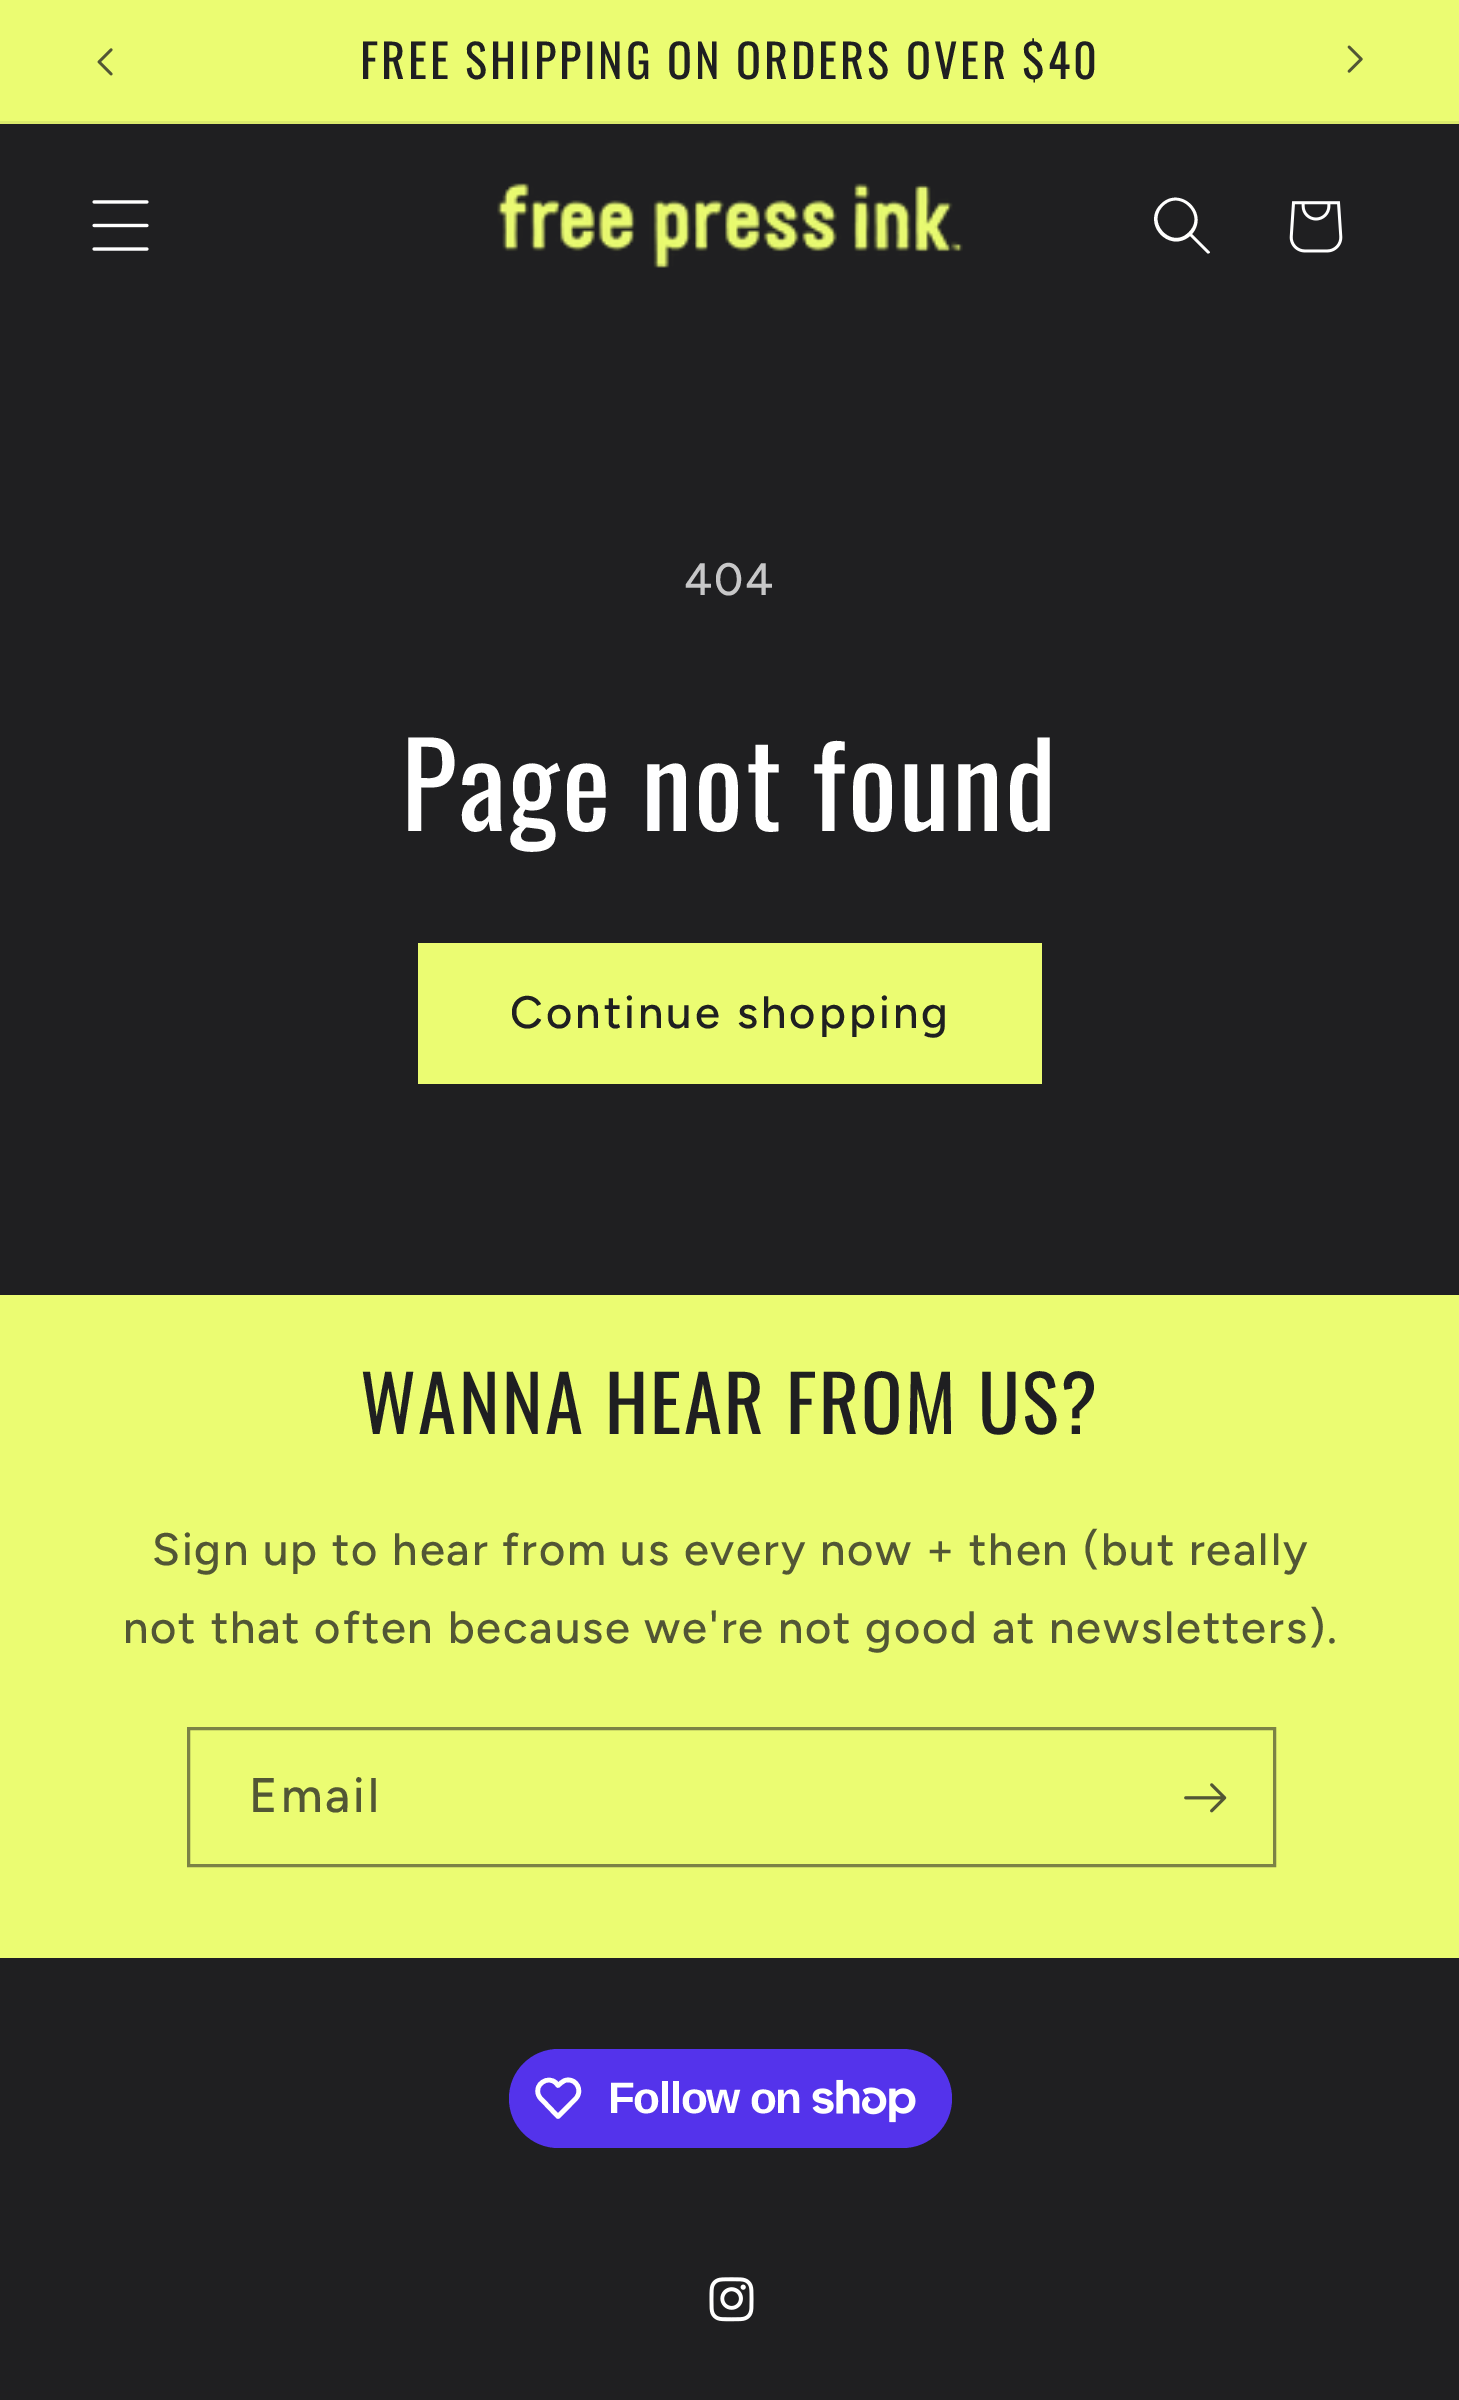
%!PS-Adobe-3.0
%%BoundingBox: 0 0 1459 2400
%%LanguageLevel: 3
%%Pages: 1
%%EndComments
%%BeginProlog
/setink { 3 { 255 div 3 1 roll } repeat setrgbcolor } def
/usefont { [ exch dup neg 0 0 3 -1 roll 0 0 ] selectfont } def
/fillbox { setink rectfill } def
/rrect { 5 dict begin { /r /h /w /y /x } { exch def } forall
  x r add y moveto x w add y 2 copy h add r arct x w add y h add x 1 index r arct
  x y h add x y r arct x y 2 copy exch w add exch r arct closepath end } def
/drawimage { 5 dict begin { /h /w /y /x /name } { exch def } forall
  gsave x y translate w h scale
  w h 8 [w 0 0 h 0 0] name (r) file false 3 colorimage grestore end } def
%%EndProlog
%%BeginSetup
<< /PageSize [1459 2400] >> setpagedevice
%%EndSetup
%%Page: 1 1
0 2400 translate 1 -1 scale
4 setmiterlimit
0 0 1459 2400 31 31 33 fillbox
0 0 1459 121 235 252 114 fillbox
0 121 1459 3 219 234 108 fillbox
(assets/img1.rgb) 97 48 16 28 drawimage
/Oswald-Regular 46.25 usefont
31 31 33 setink
360 79 moveto 3 0 (FREE SHIPPING ON ORDERS OVER $40) ashow
(assets/img2.rgb) 1347 45 16 28 drawimage
(assets/img3.rgb) 92 200 57 51 drawimage
(assets/img4.rgb) 497 183 466 85 drawimage
255 255 255 setink
1189 232 moveto 1172 250 1146 223 1163 206 curveto 1180 189 1206 215 1189 232 curveto 1190 236 moveto 1169 254 1141 223 1161 204 curveto 1180 185 1210 213 1192 234 curveto 1210 252 lineto 1210 253 1208 254 1207 253 curveto closepath eofill
(assets/img5.rgb) 1289 201 54 52 drawimage
/Figtree-Medium 45.4 usefont
199 199 200 setink
684 595 moveto 1.82 0 (404) ashow
/Oswald-Regular 115.5 usefont
255 255 255 setink
401 831 moveto 2.3 0 (Page not found) ashow
418 943 624 141 235 252 114 fillbox
/Figtree-Medium 45.4 usefont
31 31 33 setink
510 1028 moveto 3 0 (Continue shopping) ashow
0 1295 1459 663 235 252 114 fillbox
/Oswald-Regular 77 usefont
31 31 33 setink
360 1434 moveto 2.3 0 (WANNA HEAR FROM US?) ashow
/Figtree-Medium 45.4 usefont
82 86 53 setink
152 1565 moveto 1.82 0 (Sign up to hear from us every now + then \(but really) ashow
123 1643 moveto 1.82 0 (not that often because we're not good at newsletters\).) ashow
123 130 69 setink
3 setlinewidth
188.5 1728.5 1086 137 rectstroke
/Figtree-Medium 48.5 usefont
82 86 53 setink
249 1812 moveto 3 0 (Email) ashow
(assets/img6.rgb) 1184 1783 43 30 drawimage
84 51 235 setink
509 2049 443 99 49.5 rrect fill
255 255 255 setink
4.6 setlinewidth
1 setlinejoin
556 2083 moveto 558 2085.5 lineto 560.5 2083.5 562 2081.5 565 2080.5 curveto 573.5 2077.5 581.5 2086.5 578 2095 curveto 576.5 2099 572.5 2101.5 570 2104.5 curveto 558 2116.5 lineto 546.5 2104.5 lineto 544 2101.5 540 2099 538.5 2095 curveto 534 2084.5 548 2075 556 2083 curveto closepath stroke
/LiberationSans-Bold 44 usefont
608 2113 moveto -1.4 0 (Follow on) ashow
(assets/img7.rgb) 812 2079 104 44 drawimage
(assets/img8.rgb) 709 2277 45 45 drawimage
showpage
%%EOF
